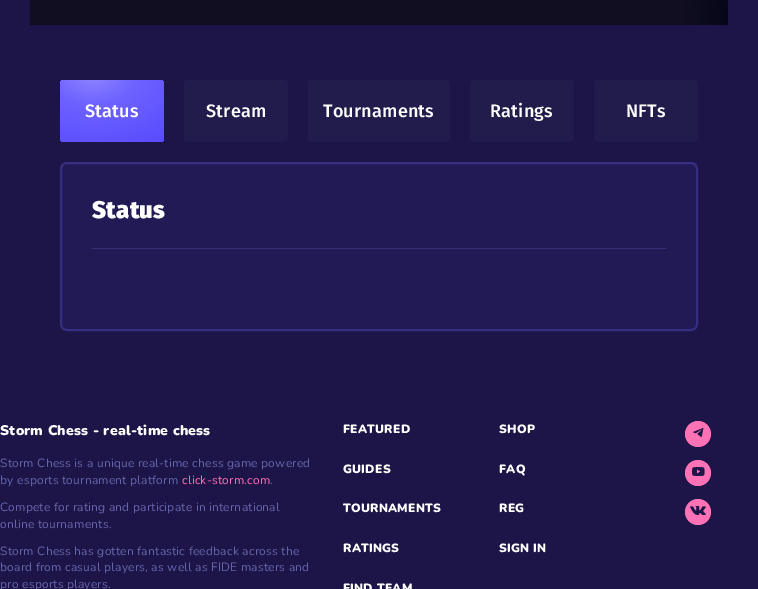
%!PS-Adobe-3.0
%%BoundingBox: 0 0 758 589
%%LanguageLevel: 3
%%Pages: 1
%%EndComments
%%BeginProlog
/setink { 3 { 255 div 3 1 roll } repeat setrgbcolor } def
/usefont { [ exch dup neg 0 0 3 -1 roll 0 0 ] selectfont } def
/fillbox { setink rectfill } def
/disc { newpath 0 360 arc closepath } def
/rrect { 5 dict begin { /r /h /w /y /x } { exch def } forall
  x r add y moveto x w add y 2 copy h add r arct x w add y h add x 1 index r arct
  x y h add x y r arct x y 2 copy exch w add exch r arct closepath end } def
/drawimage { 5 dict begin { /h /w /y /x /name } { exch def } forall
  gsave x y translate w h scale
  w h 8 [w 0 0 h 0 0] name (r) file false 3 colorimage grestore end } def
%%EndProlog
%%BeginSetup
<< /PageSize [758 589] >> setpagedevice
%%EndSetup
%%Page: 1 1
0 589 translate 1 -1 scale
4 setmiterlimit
0 0 758 589 29 20 71 fillbox
(assets/img1.rgb) 30 0 698 25 drawimage
gsave 60 80 104 62 4 rrect clip newpath 93 73 translate 138 96 scale
<< /ShadingType 3 /ColorSpace /DeviceRGB /Coords [0 0 0 0 0 1] /Extend [true true] /Function << /FunctionType 3 /Domain [0 1] /Functions [<< /FunctionType 2 /Domain [0 1] /C0 [0.569 0.525 1] /C1 [0.427 0.38 1] /N 1 >> << /FunctionType 2 /Domain [0 1] /C0 [0.427 0.38 1] /C1 [0.341 0.29 1] /N 1 >> << /FunctionType 2 /Domain [0 1] /C0 [0.341 0.29 1] /C1 [0.341 0.29 1] /N 1 >>] /Bounds [0.34 0.92] /Encode [0 1 0 1 0 1] >> >> shfill grestore
/FiraSans-Medium 18 usefont
255 255 255 setink
85 117 moveto 0.22 0 (Status) ashow
34 28 77 setink
184 80 104 62 4 rrect fill
255 255 255 setink
206 117 moveto 0.22 0 (Stream) ashow
34 28 77 setink
308 80 142 62 4 rrect fill
255 255 255 setink
323 117 moveto 0.22 0 (Tournaments) ashow
34 28 77 setink
470 80 104 62 4 rrect fill
255 255 255 setink
490 117 moveto 0.22 0 (Ratings) ashow
34 28 77 setink
594 80 104 62 4 rrect fill
255 255 255 setink
626 117 moveto 0.22 0 (NFTs) ashow
33 26 84 setink
61 163 636 167 6 rrect gsave fill grestore
55 45 130 setink
2 setlinewidth
stroke
92 248 574 1 55 46 121 fillbox
/FiraSans-Black 24 usefont
255 255 255 setink
92 218 moveto 0.22 0 (Status) ashow
/Nunito-Black 14 usefont
0 435 moveto 0.22 0 (Storm Chess - real-time chess) ashow
/Nunito-Regular 12 usefont
102 102 173 setink
0 467 moveto 0.22 0 (Storm Chess is a unique real-time chess game powered) ashow
0 484 moveto 0.22 0 (by esports tournament platform) ashow
255 114 182 setink
182 484 moveto 0.22 0 (click-storm.com) ashow
102 102 173 setink
270 484 moveto 0.22 0 (.) ashow
0 511 moveto 0.22 0 (Compete for rating and participate in international) ashow
0 528 moveto 0.22 0 (online tournaments.) ashow
0 555 moveto 0.22 0 (Storm Chess has gotten fantastic feedback across the) ashow
0 571 moveto 0.22 0 (board from casual players, as well as FIDE masters and) ashow
0 588 moveto 0.22 0 (pro esports players.) ashow
/Nunito-Black 12 usefont
255 255 255 setink
343 433 moveto 0.22 0 (FEATURED) ashow
343 473 moveto 0.22 0 (GUIDES) ashow
343 512 moveto 0.22 0 (TOURNAMENTS) ashow
343 552 moveto 0.22 0 (RATINGS) ashow
343 592 moveto 0.22 0 (FIND TEAM) ashow
499 433 moveto 0.22 0 (SHOP) ashow
499 473 moveto 0.22 0 (FAQ) ashow
499 512 moveto 0.22 0 (REG) ashow
499 552 moveto 0.22 0 (SIGN IN) ashow
255 114 182 setink
698 434 13 disc fill
(assets/img2.rgb) 693 428 11 9 drawimage
698 473 13 disc fill
(assets/img3.rgb) 692 467 13 9 drawimage
698 512 13 disc fill
(assets/img4.rgb) 690 506 16 9 drawimage
showpage
%%EOF
